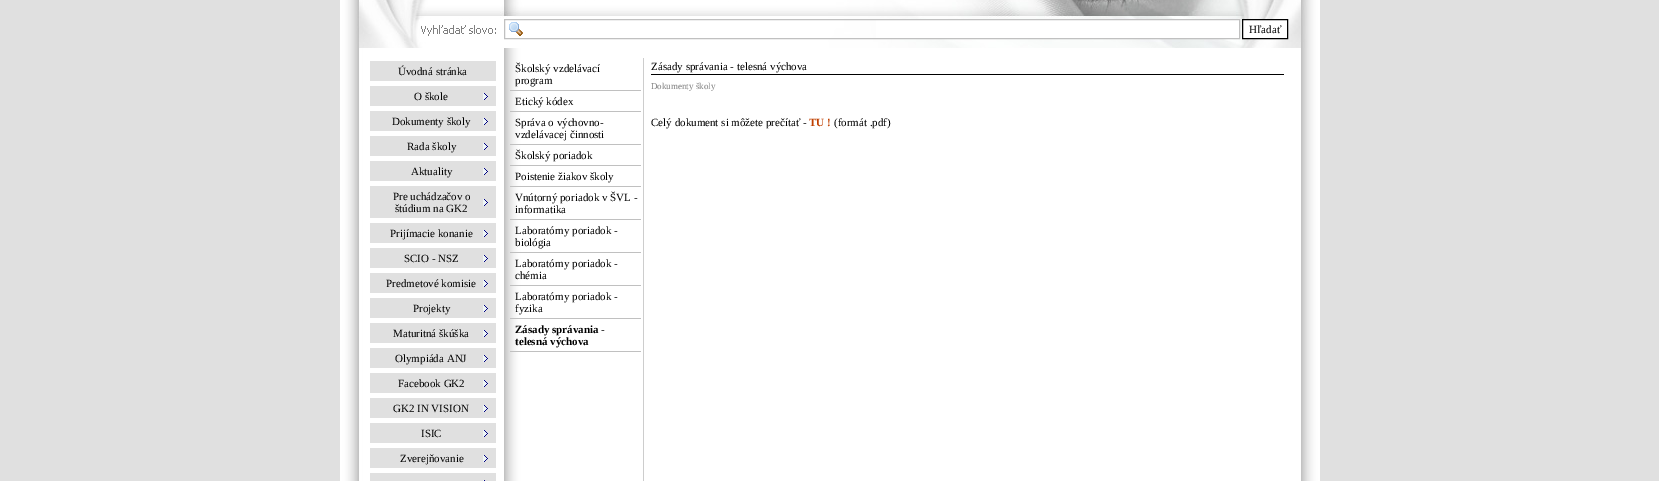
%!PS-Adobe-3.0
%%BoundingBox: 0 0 1659 481
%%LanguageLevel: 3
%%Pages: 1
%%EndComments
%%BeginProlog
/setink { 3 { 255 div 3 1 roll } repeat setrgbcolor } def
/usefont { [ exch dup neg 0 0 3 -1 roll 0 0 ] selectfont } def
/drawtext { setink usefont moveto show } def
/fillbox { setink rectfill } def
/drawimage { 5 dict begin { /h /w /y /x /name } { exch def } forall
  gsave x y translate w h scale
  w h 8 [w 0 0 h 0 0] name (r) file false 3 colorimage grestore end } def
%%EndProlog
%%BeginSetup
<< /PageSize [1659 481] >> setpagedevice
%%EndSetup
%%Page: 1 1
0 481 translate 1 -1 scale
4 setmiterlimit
0 0 1659 481 224 224 224 fillbox
(assets/img1.rgb) 340 0 980 48 drawimage
876 20 363 18 255 255 255 fillbox
(assets/img2.rgb) 509 22 14 14 drawimage
192 192 192 setink
504.5 19.5 735 19 rectstroke
255 255 255 setink
1242.5 19.5 moveto 1287.5 19.5 lineto 1287.5 38.5 lineto 1242.5 38.5 lineto closepath gsave fill grestore
0 0 0 setink
stroke
(Hľadať) 1249 33 /LiberationSerif-Regular 11 0 0 0 drawtext
(assets/img3.rgb) 340 48 980 433 drawimage
370 61 126 20 224 224 224 fillbox
(Úvodná stránka) 398 75 /LiberationSerif-Regular 11 0 0 0 drawtext
370 86 126 20 224 224 224 fillbox
(assets/img4.rgb) 483 93 5 7 drawimage
(O škole) 414 100 /LiberationSerif-Regular 11 0 0 0 drawtext
370 111 126 20 224 224 224 fillbox
(assets/img4.rgb) 483 118 5 7 drawimage
(Dokumenty školy) 392 125 /LiberationSerif-Regular 11 0 0 0 drawtext
370 136 126 20 224 224 224 fillbox
(assets/img4.rgb) 483 143 5 7 drawimage
(Rada školy) 407 150 /LiberationSerif-Regular 11 0 0 0 drawtext
370 161 126 20 224 224 224 fillbox
(assets/img4.rgb) 483 168 5 7 drawimage
(Aktuality) 411 175 /LiberationSerif-Regular 11 0 0 0 drawtext
370 186 126 32 224 224 224 fillbox
(assets/img4.rgb) 483 199 5 7 drawimage
(Pre uchádzačov o) 393 200 /LiberationSerif-Regular 11 0 0 0 drawtext
(štúdium na GK2) 395 212 /LiberationSerif-Regular 11 0 0 0 drawtext
370 223 126 20 224 224 224 fillbox
(assets/img4.rgb) 483 230 5 7 drawimage
(Prijímacie konanie) 390 237 /LiberationSerif-Regular 11 0 0 0 drawtext
370 248 126 20 224 224 224 fillbox
(assets/img4.rgb) 483 255 5 7 drawimage
(SCIO - NSZ) 404 262 /LiberationSerif-Regular 11 0 0 0 drawtext
370 273 126 20 224 224 224 fillbox
(assets/img4.rgb) 483 280 5 7 drawimage
(Predmetové komisie) 386 287 /LiberationSerif-Regular 11 0 0 0 drawtext
370 298 126 20 224 224 224 fillbox
(assets/img4.rgb) 483 305 5 7 drawimage
(Projekty) 413 312 /LiberationSerif-Regular 11 0 0 0 drawtext
370 323 126 20 224 224 224 fillbox
(assets/img4.rgb) 483 330 5 7 drawimage
(Maturitná škúška) 393 337 /LiberationSerif-Regular 11 0 0 0 drawtext
370 348 126 20 224 224 224 fillbox
(assets/img4.rgb) 483 355 5 7 drawimage
(Olympiáda ANJ) 395 362 /LiberationSerif-Regular 11 0 0 0 drawtext
370 373 126 20 224 224 224 fillbox
(assets/img4.rgb) 483 380 5 7 drawimage
(Facebook GK2) 398 387 /LiberationSerif-Regular 11 0 0 0 drawtext
370 398 126 20 224 224 224 fillbox
(assets/img4.rgb) 483 405 5 7 drawimage
(GK2 IN VISION) 393 412 /LiberationSerif-Regular 11 0 0 0 drawtext
370 423 126 20 224 224 224 fillbox
(assets/img4.rgb) 483 430 5 7 drawimage
(ISIC) 421 437 /LiberationSerif-Regular 11 0 0 0 drawtext
370 448 126 20 224 224 224 fillbox
(assets/img4.rgb) 483 455 5 7 drawimage
(Zverejňovanie) 400 462 /LiberationSerif-Regular 11 0 0 0 drawtext
370 473 126 8 224 224 224 fillbox
(assets/img5.rgb) 483 480 2 1 drawimage
510 90 131 1 192 192 192 fillbox
(Školský vzdelávací) 515 72 /LiberationSerif-Regular 11 0 0 0 drawtext
(program) 515 84 /LiberationSerif-Regular 11 0 0 0 drawtext
510 111 131 1 192 192 192 fillbox
(Etický kódex) 515 105 /LiberationSerif-Regular 11 0 0 0 drawtext
510 144 131 1 192 192 192 fillbox
(Správa o výchovno-) 515 126 /LiberationSerif-Regular 11 0 0 0 drawtext
(vzdelávacej činnosti) 515 138 /LiberationSerif-Regular 11 0 0 0 drawtext
510 165 131 1 192 192 192 fillbox
(Školský poriadok) 515 159 /LiberationSerif-Regular 11 0 0 0 drawtext
510 186 131 1 192 192 192 fillbox
(Poistenie žiakov školy) 515 180 /LiberationSerif-Regular 11 0 0 0 drawtext
510 219 131 1 192 192 192 fillbox
(Vnútorný poriadok v ŠVL -) 515 201 /LiberationSerif-Regular 11 0 0 0 drawtext
(informatika) 515 213 /LiberationSerif-Regular 11 0 0 0 drawtext
510 252 131 1 192 192 192 fillbox
(Laboratórny poriadok -) 515 234 /LiberationSerif-Regular 11 0 0 0 drawtext
(biológia) 515 246 /LiberationSerif-Regular 11 0 0 0 drawtext
510 285 131 1 192 192 192 fillbox
(Laboratórny poriadok -) 515 267 /LiberationSerif-Regular 11 0 0 0 drawtext
(chémia) 515 279 /LiberationSerif-Regular 11 0 0 0 drawtext
510 318 131 1 192 192 192 fillbox
(Laboratórny poriadok -) 515 300 /LiberationSerif-Regular 11 0 0 0 drawtext
(fyzika) 515 312 /LiberationSerif-Regular 11 0 0 0 drawtext
510 351 131 1 192 192 192 fillbox
(Zásady správania -) 515 333 /LiberationSerif-Bold 11 0 0 0 drawtext
(telesná výchova) 515 345 /LiberationSerif-Bold 11 0 0 0 drawtext
643 58 1 423 205 205 205 fillbox
651 74 633 1 0 0 0 fillbox
(Zásady správania - telesná výchova) 651 70 /LiberationSerif-Regular 11 0 0 0 drawtext
(Dokumenty školy) 651 89 /LiberationSerif-Regular 9 128 128 128 drawtext
(Celý dokument si môžete prečítať -) 651 126 /LiberationSerif-Regular 11 0 0 0 drawtext
(TU !) 809 126 /LiberationSerif-Bold 11 192 64 0 drawtext
(\(formát .pdf\)) 834 126 /LiberationSerif-Regular 11 0 0 0 drawtext
showpage
%%EOF
